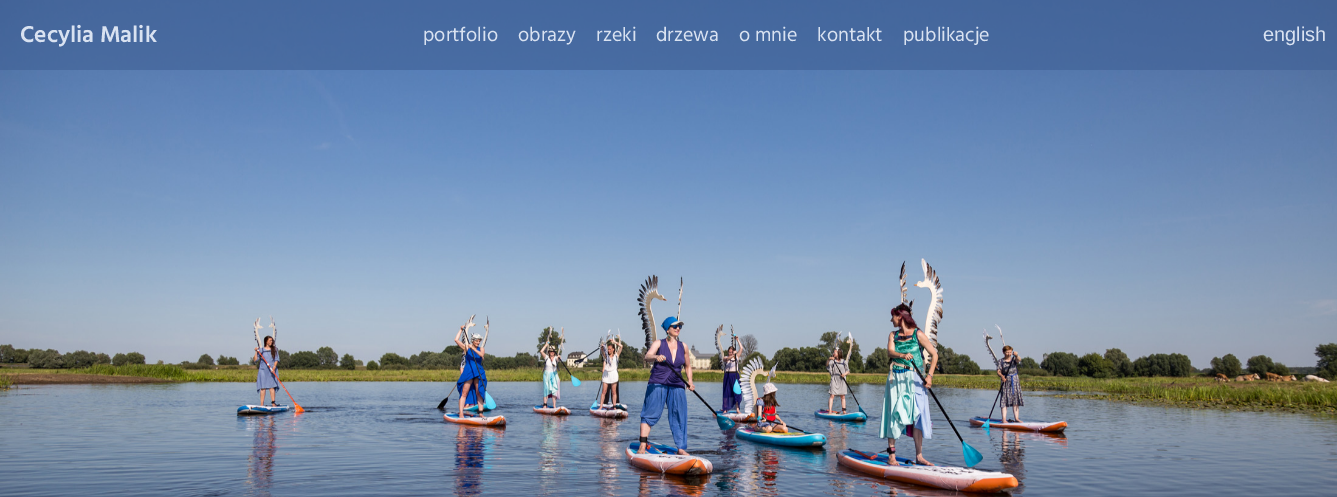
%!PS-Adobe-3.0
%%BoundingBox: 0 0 1337 497
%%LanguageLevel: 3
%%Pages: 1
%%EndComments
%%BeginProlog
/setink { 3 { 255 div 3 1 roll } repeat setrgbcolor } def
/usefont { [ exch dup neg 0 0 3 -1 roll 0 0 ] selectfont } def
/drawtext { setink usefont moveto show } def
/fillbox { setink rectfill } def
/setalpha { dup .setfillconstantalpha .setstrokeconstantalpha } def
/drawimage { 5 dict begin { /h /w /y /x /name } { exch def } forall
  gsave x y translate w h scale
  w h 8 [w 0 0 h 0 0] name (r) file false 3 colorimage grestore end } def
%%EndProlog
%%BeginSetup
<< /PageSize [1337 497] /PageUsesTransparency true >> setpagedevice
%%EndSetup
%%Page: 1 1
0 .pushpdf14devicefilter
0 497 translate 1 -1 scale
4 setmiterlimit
0 0 1337 497 255 255 255 fillbox
(assets/img1.rgb) 0 0 1337 497 drawimage
0.6 setalpha
0 0 1337 70 63 96 149 fillbox
1 setalpha
(Cecylia Malik) 20 42 /HindSiliguri-SemiBold 23.5 217 226 241 drawtext
(portfolio) 423 41 /HindSiliguri-Regular 20 217 226 241 drawtext
(obrazy) 518 41 /HindSiliguri-Regular 20 217 226 241 drawtext
(rzeki) 596 41 /HindSiliguri-Regular 20 217 226 241 drawtext
(drzewa) 656 41 /HindSiliguri-Regular 20 217 226 241 drawtext
(o mnie) 739 41 /HindSiliguri-Regular 20 217 226 241 drawtext
(kontakt) 817 41 /HindSiliguri-Regular 20 217 226 241 drawtext
(publikacje) 903 41 /HindSiliguri-Regular 20 217 226 241 drawtext
(english) 1263 41 /LiberationSans-Regular 20 217 226 241 drawtext
.poppdf14devicefilter showpage
%%EOF
